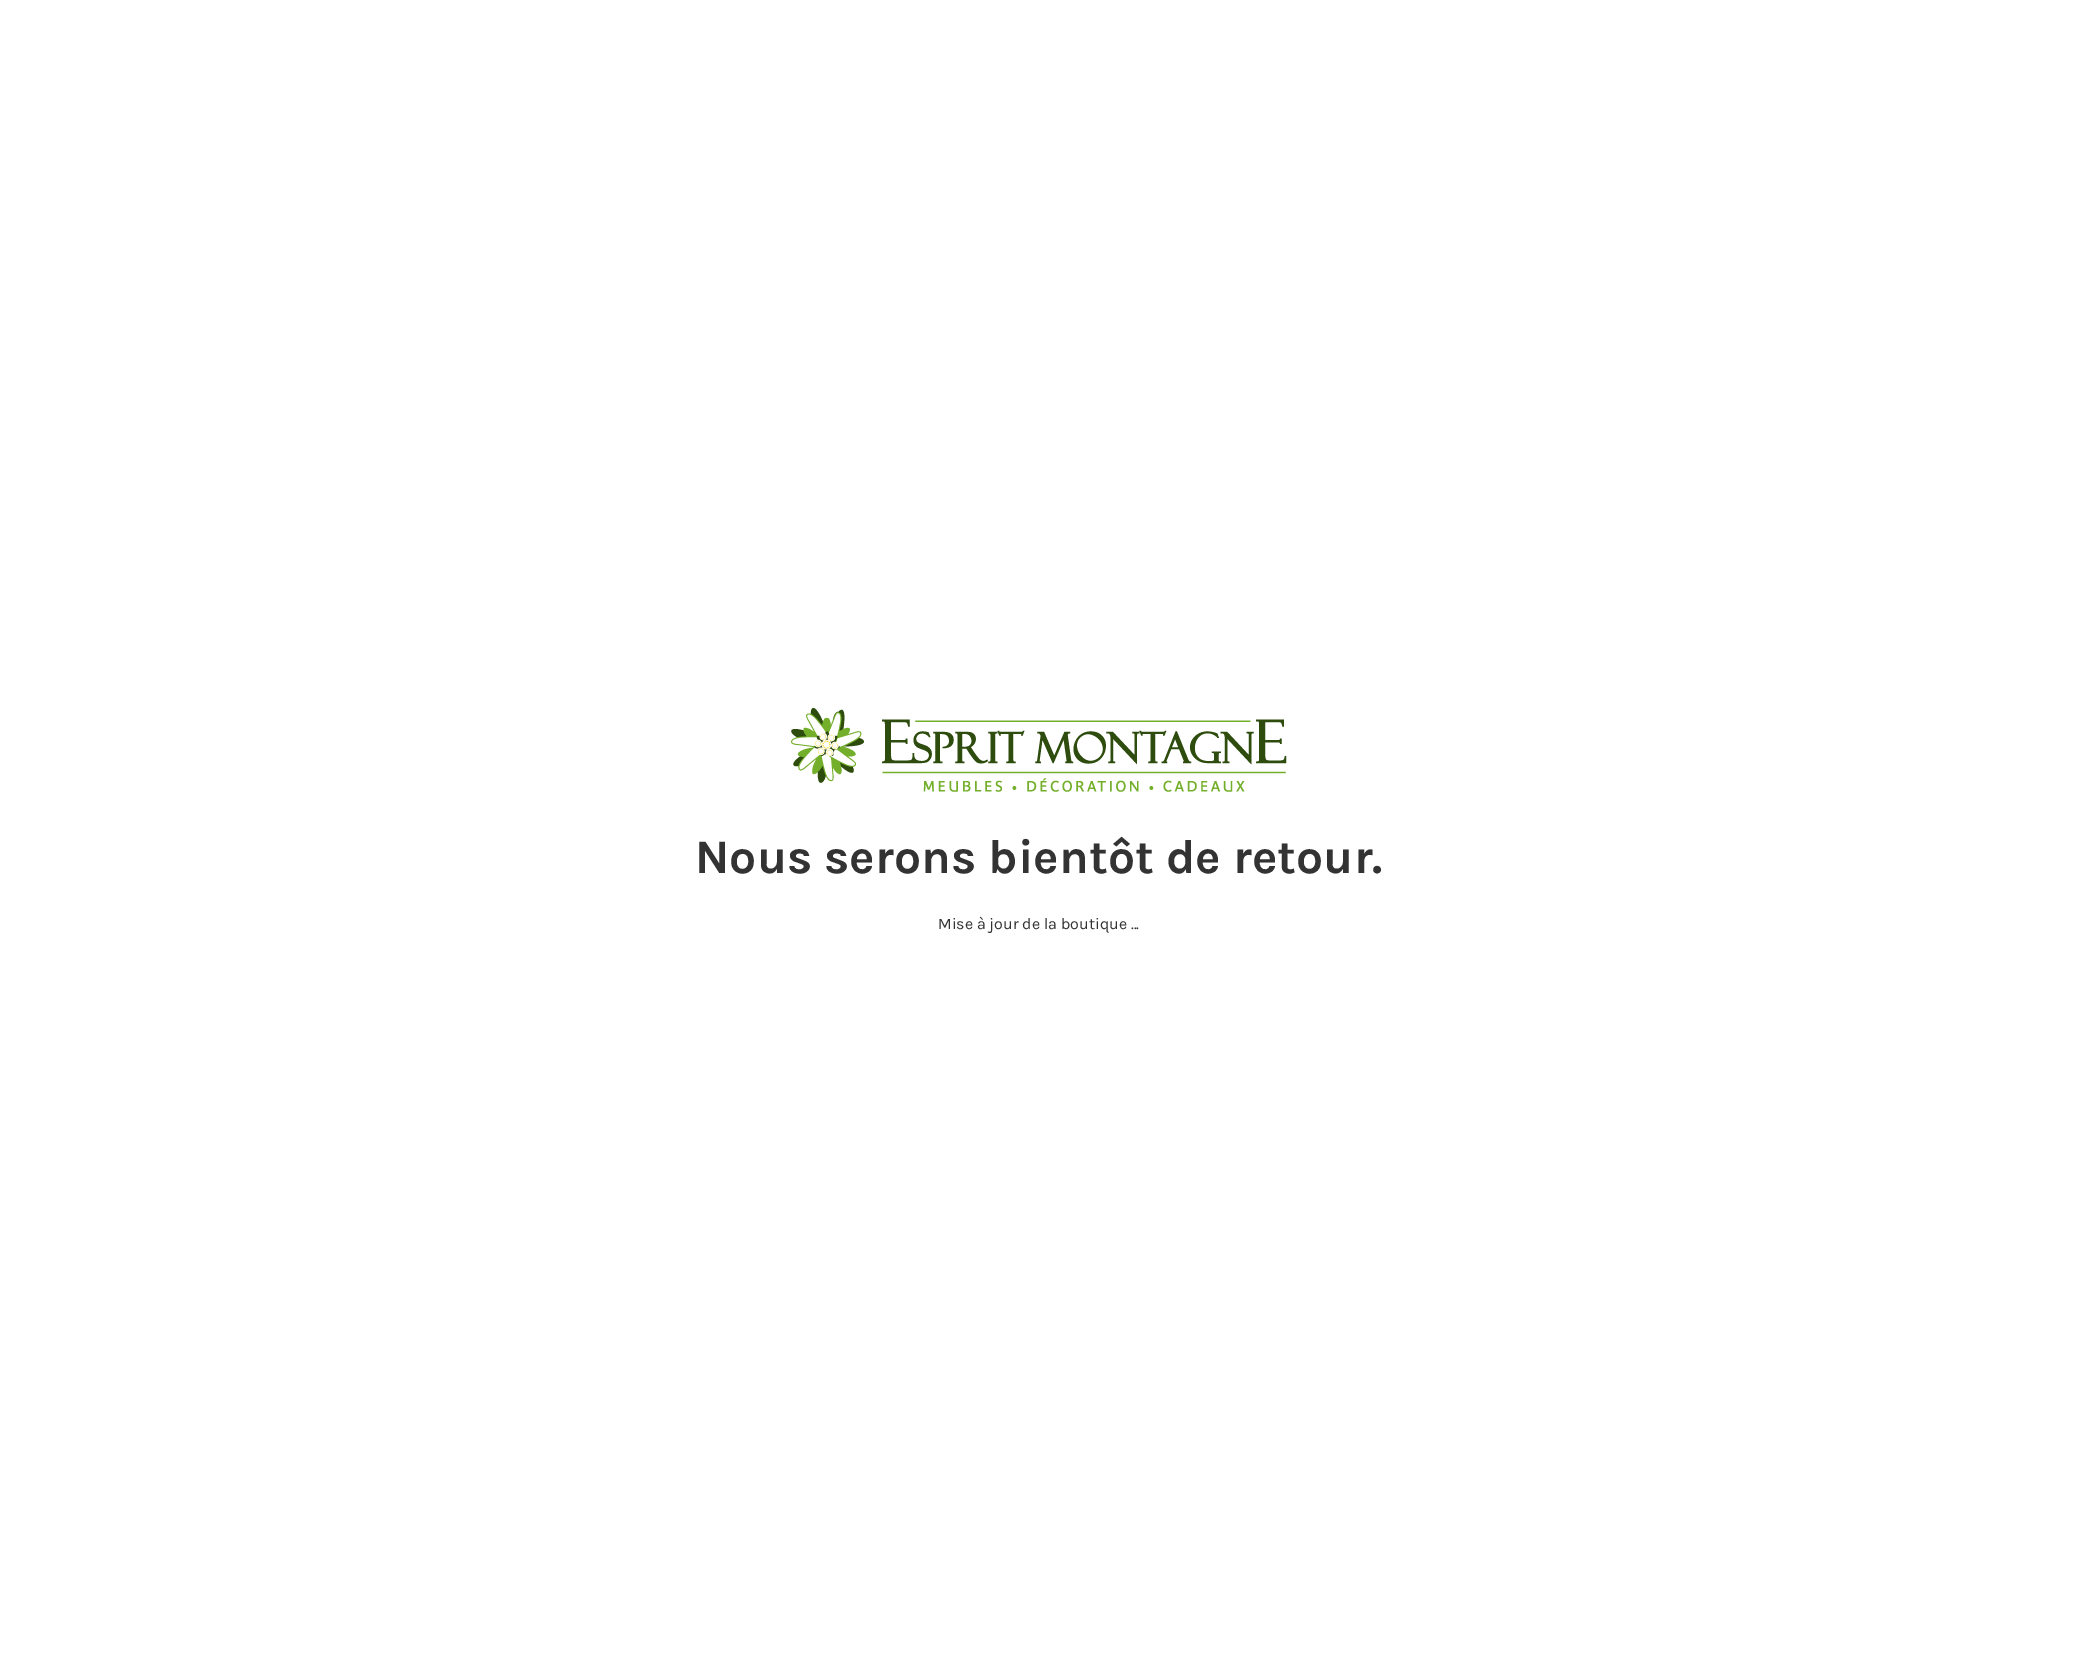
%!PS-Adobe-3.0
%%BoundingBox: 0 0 2078 1656
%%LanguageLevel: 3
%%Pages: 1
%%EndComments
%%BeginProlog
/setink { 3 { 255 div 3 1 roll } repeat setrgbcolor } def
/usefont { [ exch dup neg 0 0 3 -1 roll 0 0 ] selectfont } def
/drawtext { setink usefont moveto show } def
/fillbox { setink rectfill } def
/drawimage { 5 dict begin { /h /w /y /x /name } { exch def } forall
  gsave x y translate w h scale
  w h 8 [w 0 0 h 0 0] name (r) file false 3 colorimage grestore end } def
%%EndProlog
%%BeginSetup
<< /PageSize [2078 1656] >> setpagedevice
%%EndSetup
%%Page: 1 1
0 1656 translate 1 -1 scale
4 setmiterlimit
0 0 2078 1656 255 255 255 fillbox
(assets/img1.rgb) 791 707 496 85 drawimage
(Nous serons bientôt de retour.) 695 873 /Karla-Bold 48 51 51 51 drawtext
(Mise à jour de la boutique ...) 938 929 /Karla-Regular 16 51 51 51 drawtext
showpage
%%EOF
